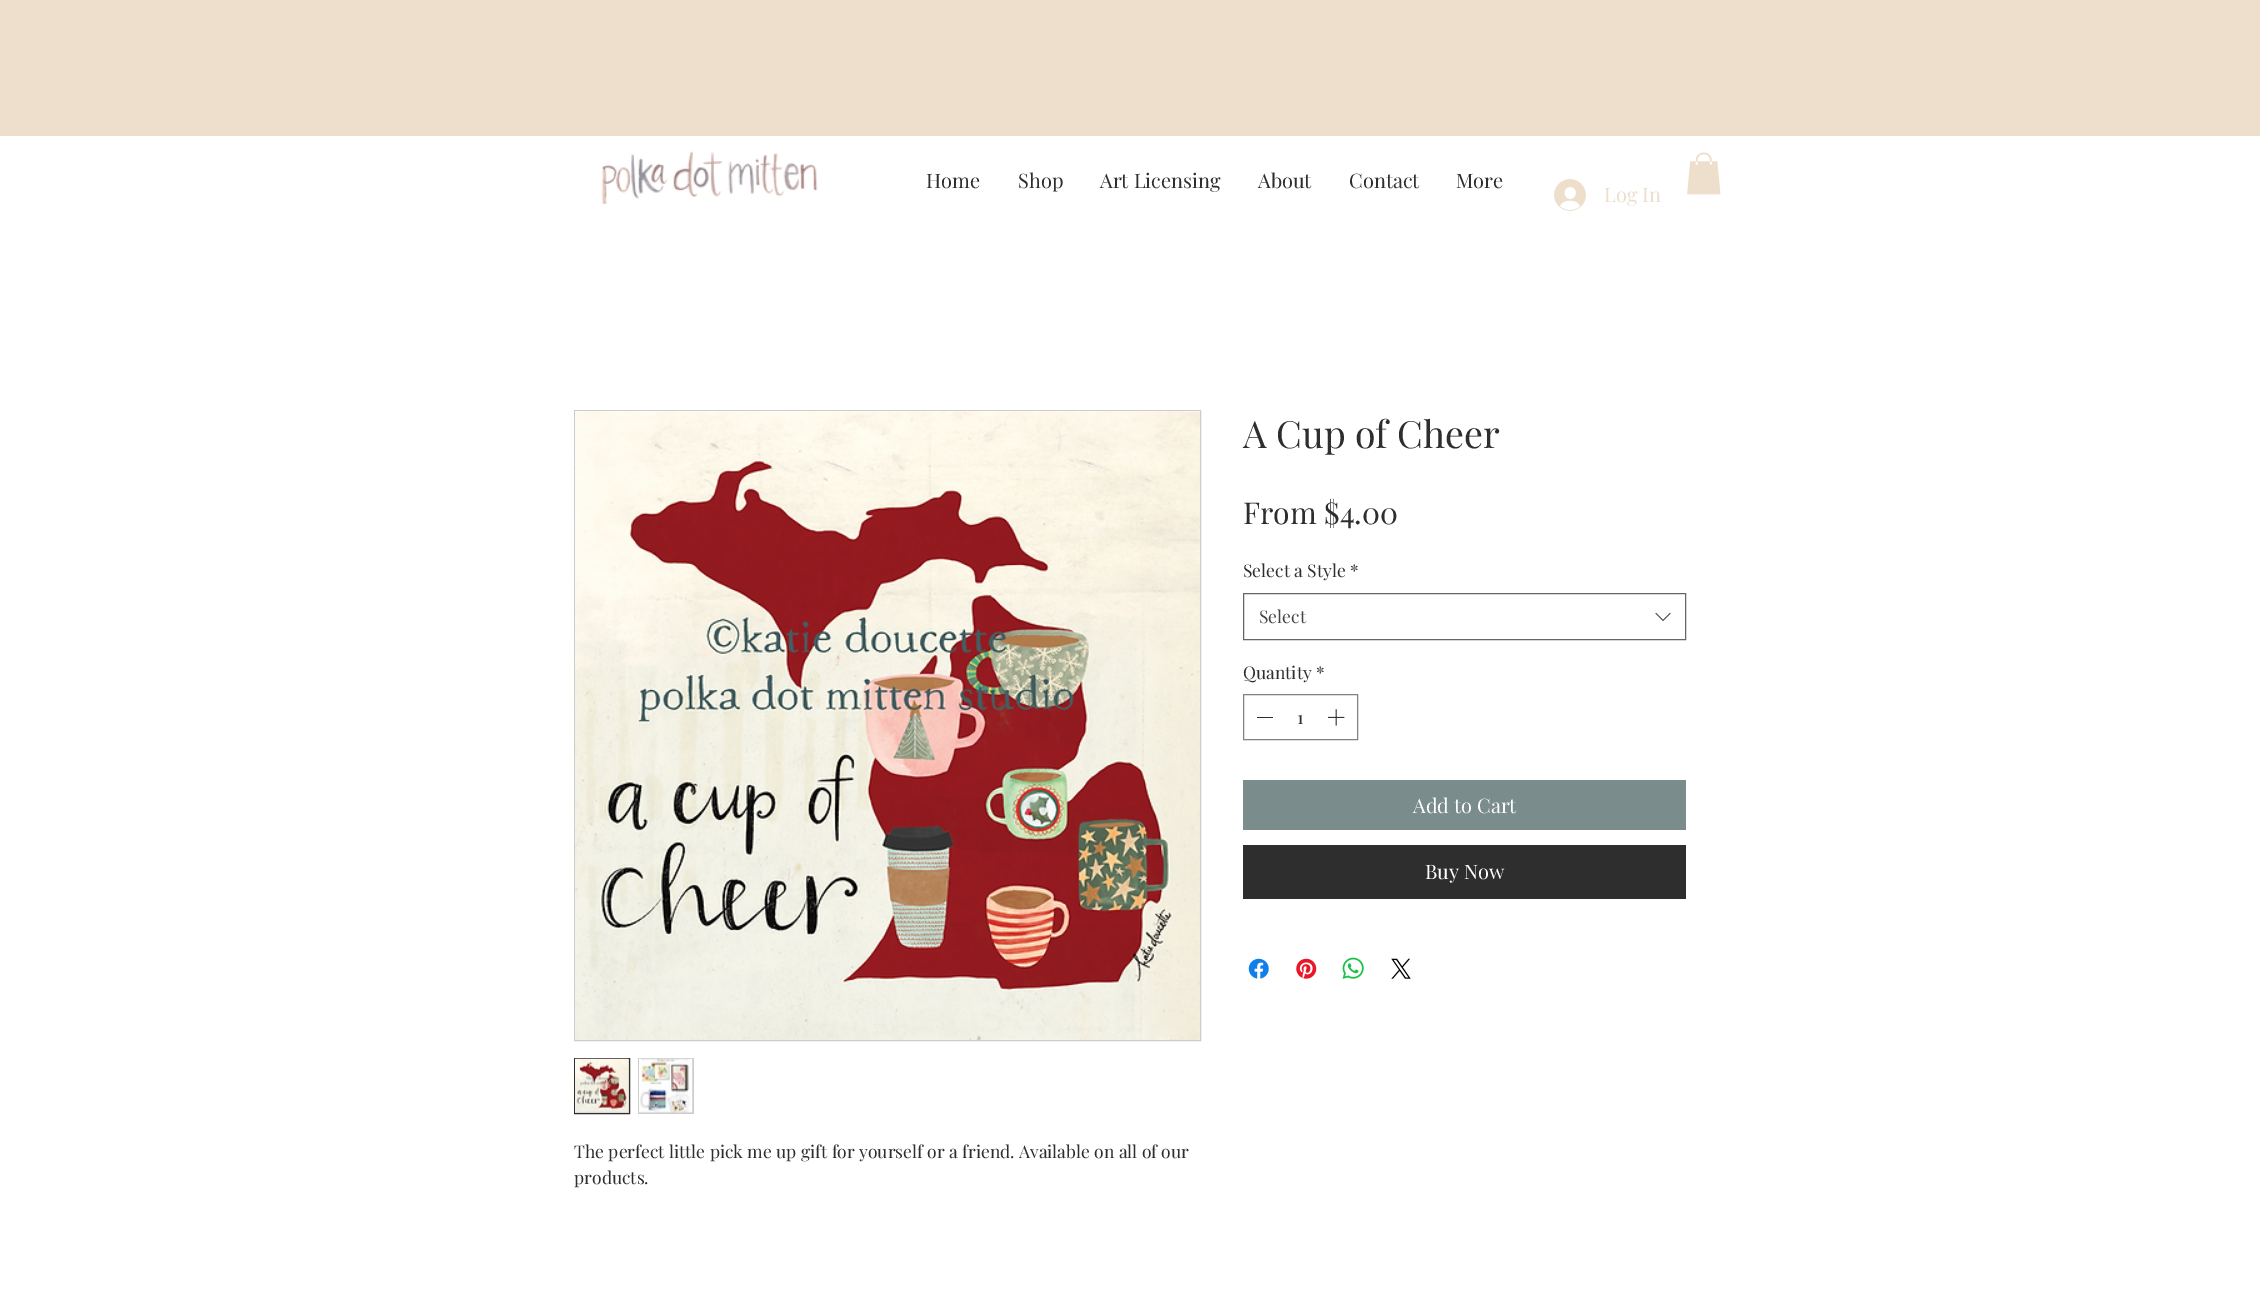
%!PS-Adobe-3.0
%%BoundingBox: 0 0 2260 1297
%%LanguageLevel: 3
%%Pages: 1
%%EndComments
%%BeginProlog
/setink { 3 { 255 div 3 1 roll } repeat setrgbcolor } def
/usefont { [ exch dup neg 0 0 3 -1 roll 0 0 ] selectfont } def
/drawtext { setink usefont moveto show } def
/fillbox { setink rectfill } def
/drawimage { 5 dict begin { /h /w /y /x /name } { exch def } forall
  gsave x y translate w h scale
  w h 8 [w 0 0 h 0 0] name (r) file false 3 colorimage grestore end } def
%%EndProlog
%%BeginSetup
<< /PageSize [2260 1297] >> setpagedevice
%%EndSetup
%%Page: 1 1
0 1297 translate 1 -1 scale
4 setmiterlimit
0 0 2260 1297 255 255 255 fillbox
0 0 2260 136 237 223 204 fillbox
(assets/img1.rgb) 601 151 217 53 drawimage
(Home) 926 188 /PlayfairDisplay-Regular 20 47 46 46 drawtext
(Shop) 1018 188 /PlayfairDisplay-Regular 20 47 46 46 drawtext
(Art Licensing) 1100 188 /PlayfairDisplay-Regular 20 47 46 46 drawtext
(About) 1258 188 /PlayfairDisplay-Regular 20 47 46 46 drawtext
(Contact) 1349 188 /PlayfairDisplay-Regular 20 47 46 46 drawtext
(More) 1456 188 /PlayfairDisplay-Regular 20 47 46 46 drawtext
(assets/img2.rgb) 1687 152 34 43 drawimage
(assets/img3.rgb) 1554 179 32 32 drawimage
(Log In) 1604 202 /PlayfairDisplay-Regular 20 237 223 204 drawtext
(A Cup of Cheer) 1243 448 /PlayfairDisplay-Regular 37.5 47 46 46 drawtext
(From $4.00) 1243 524 /PlayfairDisplay-Regular 30 47 46 46 drawtext
(Select a Style) 1243 577 /PlayfairDisplay-Regular 17.5 47 46 46 drawtext
(*) 1350 577 /PlayfairDisplay-Regular 17.5 47 46 46 drawtext
102 102 102 setink
1243.5 593.5 442 46 rectstroke
(Select) 1259 623 /PlayfairDisplay-Regular 17.5 68 68 68 drawtext
(assets/img4.rgb) 1655 612 16 10 drawimage
(Quantity) 1243 679 /PlayfairDisplay-Regular 17.5 47 46 46 drawtext
(*) 1316 679 /PlayfairDisplay-Regular 17.5 47 46 46 drawtext
130 130 130 setink
1243.5 694.5 114 45 rectstroke
1257 717 16 1 47 46 46 fillbox
(1) 1297 724 /PlayfairDisplay-Regular 17.5 47 46 46 drawtext
(assets/img5.rgb) 1327 709 18 17 drawimage
1243 780 443 50 122 140 140 fillbox
(Add to Cart) 1413 813 /PlayfairDisplay-Regular 20 255 255 255 drawtext
1243 845 443 54 47 46 46 fillbox
(Buy Now) 1425 879 /PlayfairDisplay-Regular 20 255 255 255 drawtext
(assets/img6.rgb) 1248 958 21 21 drawimage
(assets/img7.rgb) 1296 958 21 21 drawimage
(assets/img8.rgb) 1342 957 22 22 drawimage
(assets/img9.rgb) 1391 958 20 21 drawimage
204 204 204 setink
574.5 410.5 626 630 rectstroke
(assets/img10.rgb) 575 411 625 629 drawimage
574.5 1058.5 moveto 629.5 1058.5 lineto 629.5 1113.5 lineto 574.5 1113.5 lineto closepath gsave fill grestore
47 46 46 setink
stroke
(assets/img11.rgb) 575 1058 54 55 drawimage
638 1058 56 56 204 204 204 fillbox
(assets/img12.rgb) 639 1058 54 55 drawimage
(The perfect little pick me up gift for yourself or a friend. Available on all of our) 574 1158 /PlayfairDisplay-Regular 17.5 47 46 46 drawtext
(products.) 574 1184 /PlayfairDisplay-Regular 17.5 47 46 46 drawtext
showpage
%%EOF
